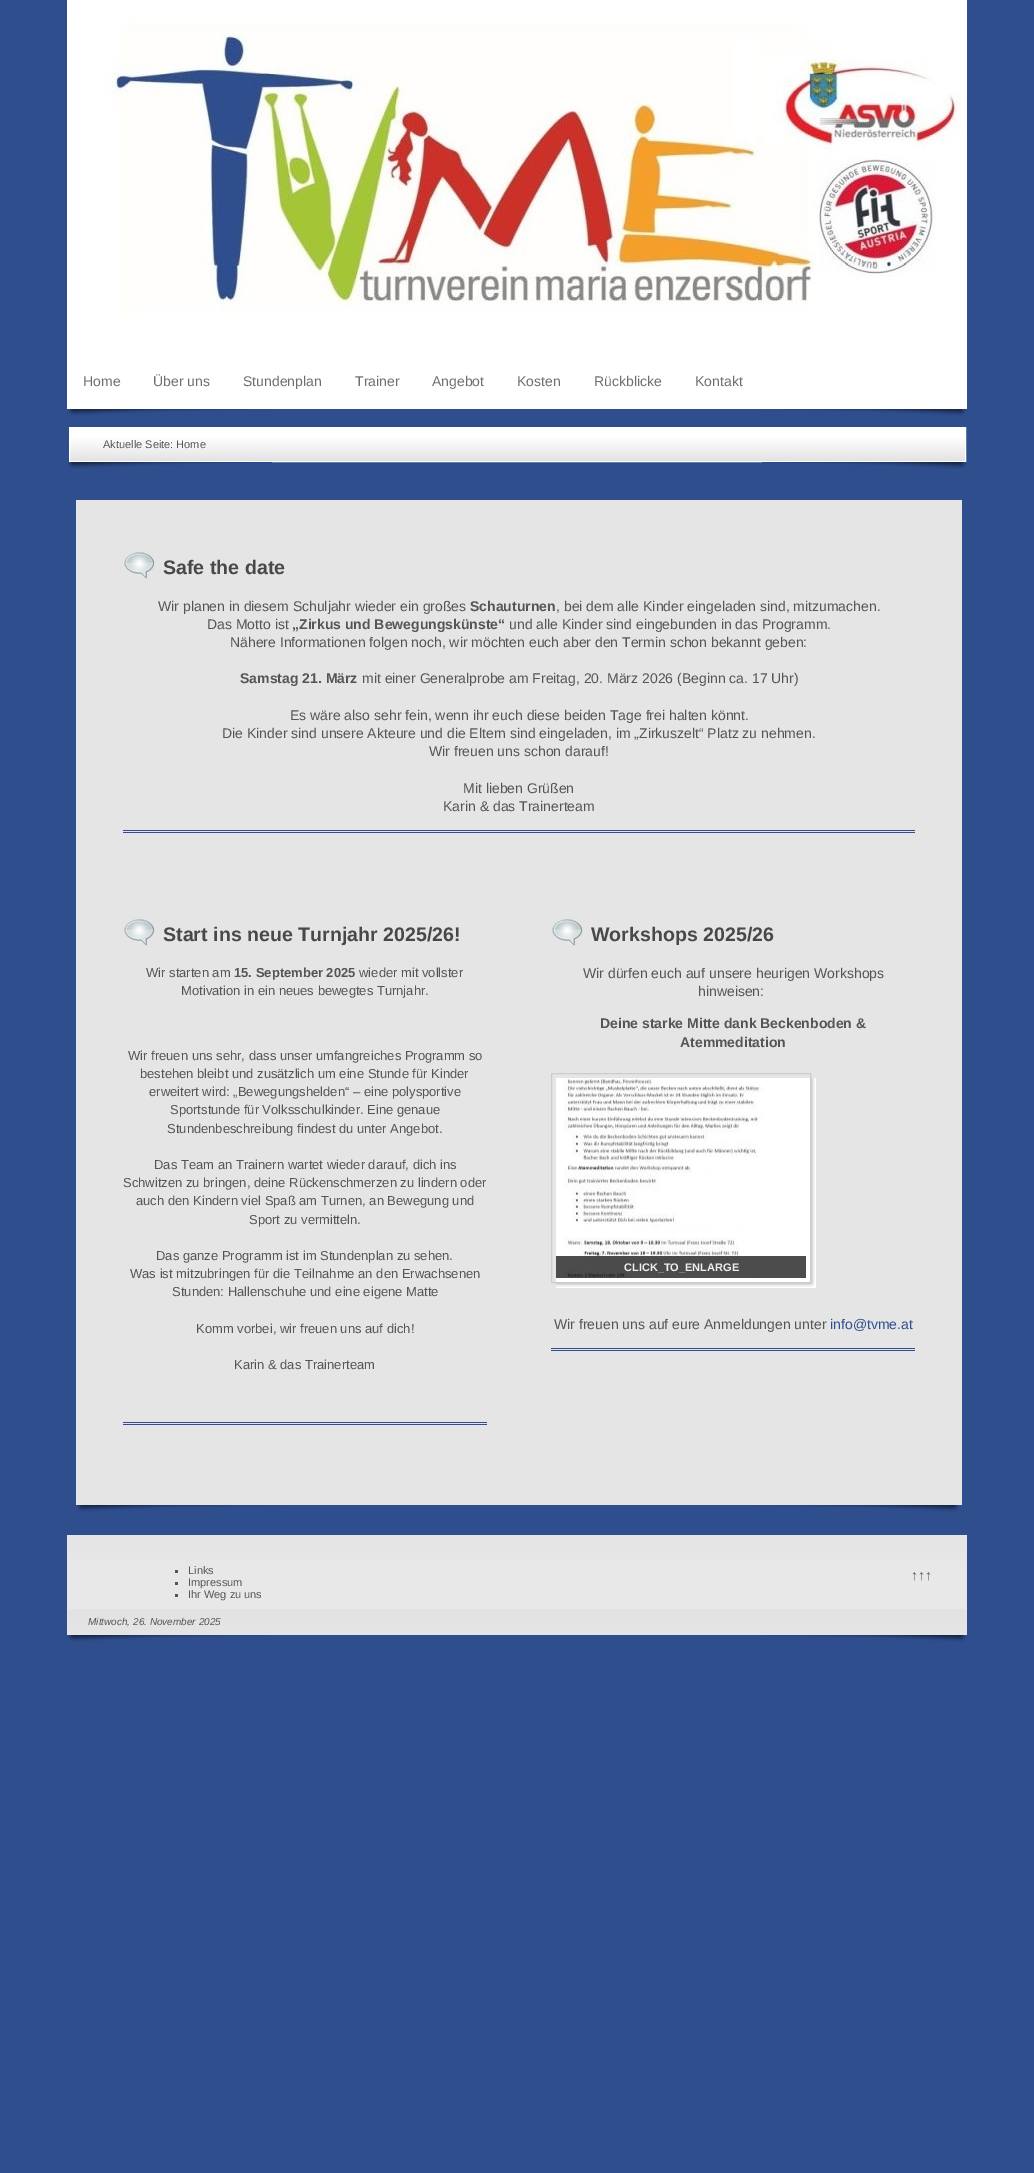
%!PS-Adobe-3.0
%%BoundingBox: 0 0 1034 2173
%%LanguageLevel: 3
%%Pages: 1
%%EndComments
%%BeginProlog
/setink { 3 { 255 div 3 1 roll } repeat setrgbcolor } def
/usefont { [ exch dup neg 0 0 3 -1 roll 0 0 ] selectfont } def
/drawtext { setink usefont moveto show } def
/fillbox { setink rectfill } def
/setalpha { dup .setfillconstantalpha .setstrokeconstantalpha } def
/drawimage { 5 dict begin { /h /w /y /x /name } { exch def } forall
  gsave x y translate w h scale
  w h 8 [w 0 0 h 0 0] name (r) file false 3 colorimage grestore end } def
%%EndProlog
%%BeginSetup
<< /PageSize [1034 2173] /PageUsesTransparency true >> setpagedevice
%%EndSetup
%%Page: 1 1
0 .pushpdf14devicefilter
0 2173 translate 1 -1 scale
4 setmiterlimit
0 0 1034 2173 47 78 142 fillbox
67 0 900 1 255 255 255 fillbox
966 0 1 357 255 255 255 fillbox
67 0 1 357 255 255 255 fillbox
(assets/img1.rgb) 68 1 898 356 drawimage
67 357 900 52 255 255 255 fillbox
(Home) 83 386 /LiberationSans-Regular 14 110 110 110 drawtext
(Über uns) 153 386 /LiberationSans-Regular 14 110 110 110 drawtext
(Stundenplan) 243 386 /LiberationSans-Regular 14 110 110 110 drawtext
(Trainer) 355 386 /LiberationSans-Regular 14 110 110 110 drawtext
(Angebot) 432 386 /LiberationSans-Regular 14 110 110 110 drawtext
(Kosten) 517 386 /LiberationSans-Regular 14 110 110 110 drawtext
(Rückblicke) 594 386 /LiberationSans-Regular 14 110 110 110 drawtext
(Kontakt) 695 386 /LiberationSans-Regular 14 110 110 110 drawtext
(assets/img2.rgb) 67 409 205 7 drawimage
(assets/img3.rgb) 762 409 205 7 drawimage
70 428 895 33 255 255 255 fillbox
(assets/img4.rgb) 70 438 895 23 drawimage
69.5 427.5 896 34 rectstroke
(Aktuelle Seite: Home) 103 448 /LiberationSans-Regular 11 85 85 85 drawtext
(assets/img2.rgb) 67 462 205 7 drawimage
(assets/img3.rgb) 762 462 205 7 drawimage
76 500 886 1005 229 229 229 fillbox
(assets/img5.rgb) 124 552 31 27 drawimage
(Safe the date) 163 574 /LiberationSans-Bold 19.6 72 72 72 drawtext
(Wir planen in diesem Schuljahr wieder ein großes) 158 611 /LiberationSans-Regular 14 85 85 85 drawtext
(Schauturnen) 470 611 /LiberationSans-Bold 14 85 85 85 drawtext
(, bei dem alle Kinder eingeladen sind, mitzumachen.) 556 611 /LiberationSans-Regular 14 85 85 85 drawtext
(Das Motto ist) 207 629 /LiberationSans-Regular 14 85 85 85 drawtext
(„Zirkus und Bewegungskünste“) 292 629 /LiberationSans-Bold 14 85 85 85 drawtext
(und alle Kinder sind eingebunden in das Programm.) 509 629 /LiberationSans-Regular 14 85 85 85 drawtext
(Nähere Informationen folgen noch, wir möchten euch aber den Termin schon bekannt geben:) 230 647 /LiberationSans-Regular 14 85 85 85 drawtext
(Samstag 21. März) 240 683 /LiberationSans-Bold 14 85 85 85 drawtext
(mit einer Generalprobe am Freitag, 20. März 2026 \(Beginn ca. 17 Uhr\)) 362 683 /LiberationSans-Regular 14 85 85 85 drawtext
(Es wäre also sehr fein, wenn ihr euch diese beiden Tage frei halten könnt.) 290 720 /LiberationSans-Regular 14 85 85 85 drawtext
(Die Kinder sind unsere Akteure und die Eltern sind eingeladen, im „Zirkuszelt“ Platz zu nehmen.) 222 738 /LiberationSans-Regular 14 85 85 85 drawtext
(Wir freuen uns schon darauf!) 429 756 /LiberationSans-Regular 14 85 85 85 drawtext
(Mit lieben Grüßen) 463 793 /LiberationSans-Regular 14 85 85 85 drawtext
(Karin & das Trainerteam) 443 811 /LiberationSans-Regular 14 85 85 85 drawtext
123 830 792 1 47 78 142 fillbox
123 832 792 1 47 78 142 fillbox
(assets/img5.rgb) 124 919 31 27 drawimage
(Start ins neue Turnjahr 2025/26!) 163 941 /LiberationSans-Bold 19.6 72 72 72 drawtext
(Wir starten am) 146 977 /LiberationSans-Regular 13 85 85 85 drawtext
(15. September 2025) 234 977 /LiberationSans-Bold 13 85 85 85 drawtext
(wieder mit vollster) 359 977 /LiberationSans-Regular 13 85 85 85 drawtext
(Motivation in ein neues bewegtes Turnjahr.) 181 995 /LiberationSans-Regular 13 85 85 85 drawtext
(Wir freuen uns sehr, dass unser umfangreiches Programm so) 128 1060 /LiberationSans-Regular 13 85 85 85 drawtext
(bestehen bleibt und zusätzlich um eine Stunde für Kinder) 140 1078 /LiberationSans-Regular 13 85 85 85 drawtext
(erweitert wird: „Bewegungshelden“ – eine polysportive) 149 1096 /LiberationSans-Regular 13 85 85 85 drawtext
(Sportstunde für Volksschulkinder. Eine genaue) 170 1114 /LiberationSans-Regular 13 85 85 85 drawtext
(Stundenbeschreibung findest du unter Angebot.) 167 1133 /LiberationSans-Regular 13 85 85 85 drawtext
(Das Team an Trainern wartet wieder darauf, dich ins) 154 1169 /LiberationSans-Regular 13 85 85 85 drawtext
(Schwitzen zu bringen, deine Rückenschmerzen zu lindern oder) 123 1187 /LiberationSans-Regular 13 85 85 85 drawtext
(auch den Kindern viel Spaß am Turnen, an Bewegung und) 136 1205 /LiberationSans-Regular 13 85 85 85 drawtext
(Sport zu vermitteln.) 249 1224 /LiberationSans-Regular 13 85 85 85 drawtext
(Das ganze Programm ist im Stundenplan zu sehen.) 156 1260 /LiberationSans-Regular 13 85 85 85 drawtext
(Was ist mitzubringen für die Teilnahme an den Erwachsenen) 130 1278 /LiberationSans-Regular 13 85 85 85 drawtext
(Stunden: Hallenschuhe und eine eigene Matte) 172 1296 /LiberationSans-Regular 13 85 85 85 drawtext
(Komm vorbei, wir freuen uns auf dich!) 196 1333 /LiberationSans-Regular 13 85 85 85 drawtext
(Karin & das Trainerteam) 234 1369 /LiberationSans-Regular 13 85 85 85 drawtext
123 1422 364 1 47 78 142 fillbox
123 1424 364 1 47 78 142 fillbox
(assets/img5.rgb) 552 919 31 27 drawimage
(Workshops 2025/26) 591 941 /LiberationSans-Bold 19.6 72 72 72 drawtext
(Wir dürfen euch auf unsere heurigen Workshops) 583 978 /LiberationSans-Regular 14 85 85 85 drawtext
(hinweisen:) 698 996 /LiberationSans-Regular 14 85 85 85 drawtext
(Deine starke Mitte dank Beckenboden &) 600 1028 /LiberationSans-Bold 14 85 85 85 drawtext
(Atemmeditation) 680 1047 /LiberationSans-Bold 14 85 85 85 drawtext
556 1078 260 210 255 255 255 fillbox
(assets/img6.rgb) 556 1078 259 209 drawimage
204 204 204 setink
551.5 1073.5 259 209 rectstroke
(assets/img7.rgb) 564 1078 200 200 drawimage
0.7 setalpha
556 1256 250 22 0 0 0 fillbox
1 setalpha
(CLICK_TO_ENLARGE) 624 1271 /LiberationSans-Bold 11 238 238 238 drawtext
(Wir freuen uns auf eure Anmeldungen unter) 554 1329 /LiberationSans-Regular 14 85 85 85 drawtext
(info@tvme.at) 830 1329 /LiberationSans-Regular 14 47 78 142 drawtext
551 1348 364 1 47 78 142 fillbox
551 1350 364 1 47 78 142 fillbox
(assets/img2.rgb) 76 1505 205 7 drawimage
(assets/img3.rgb) 755 1505 205 7 drawimage
67 1535 900 18 229 229 229 fillbox
68 1553 898 80 229 229 229 fillbox
(assets/img8.rgb) 68 1553 898 80 drawimage
966 1552 1 83 229 229 229 fillbox
67 1633 900 2 229 229 229 fillbox
67 1552 1 83 229 229 229 fillbox
175 1570 3 3 85 85 85 fillbox
(Links) 188 1574 /LiberationSans-Regular 11 85 85 85 drawtext
175 1582 3 3 85 85 85 fillbox
(Impressum) 188 1586 /LiberationSans-Regular 11 85 85 85 drawtext
175 1594 3 3 85 85 85 fillbox
(Ihr Weg zu uns) 188 1598 /LiberationSans-Regular 11 85 85 85 drawtext
(↑↑↑) 911 1580 /LiberationSans-Regular 14 85 85 85 drawtext
(Mittwoch, 26. November 2025) 88 1625 /LiberationSans-Italic 10 85 85 85 drawtext
(assets/img2.rgb) 67 1635 205 7 drawimage
(assets/img3.rgb) 762 1635 205 7 drawimage
.poppdf14devicefilter showpage
%%EOF
